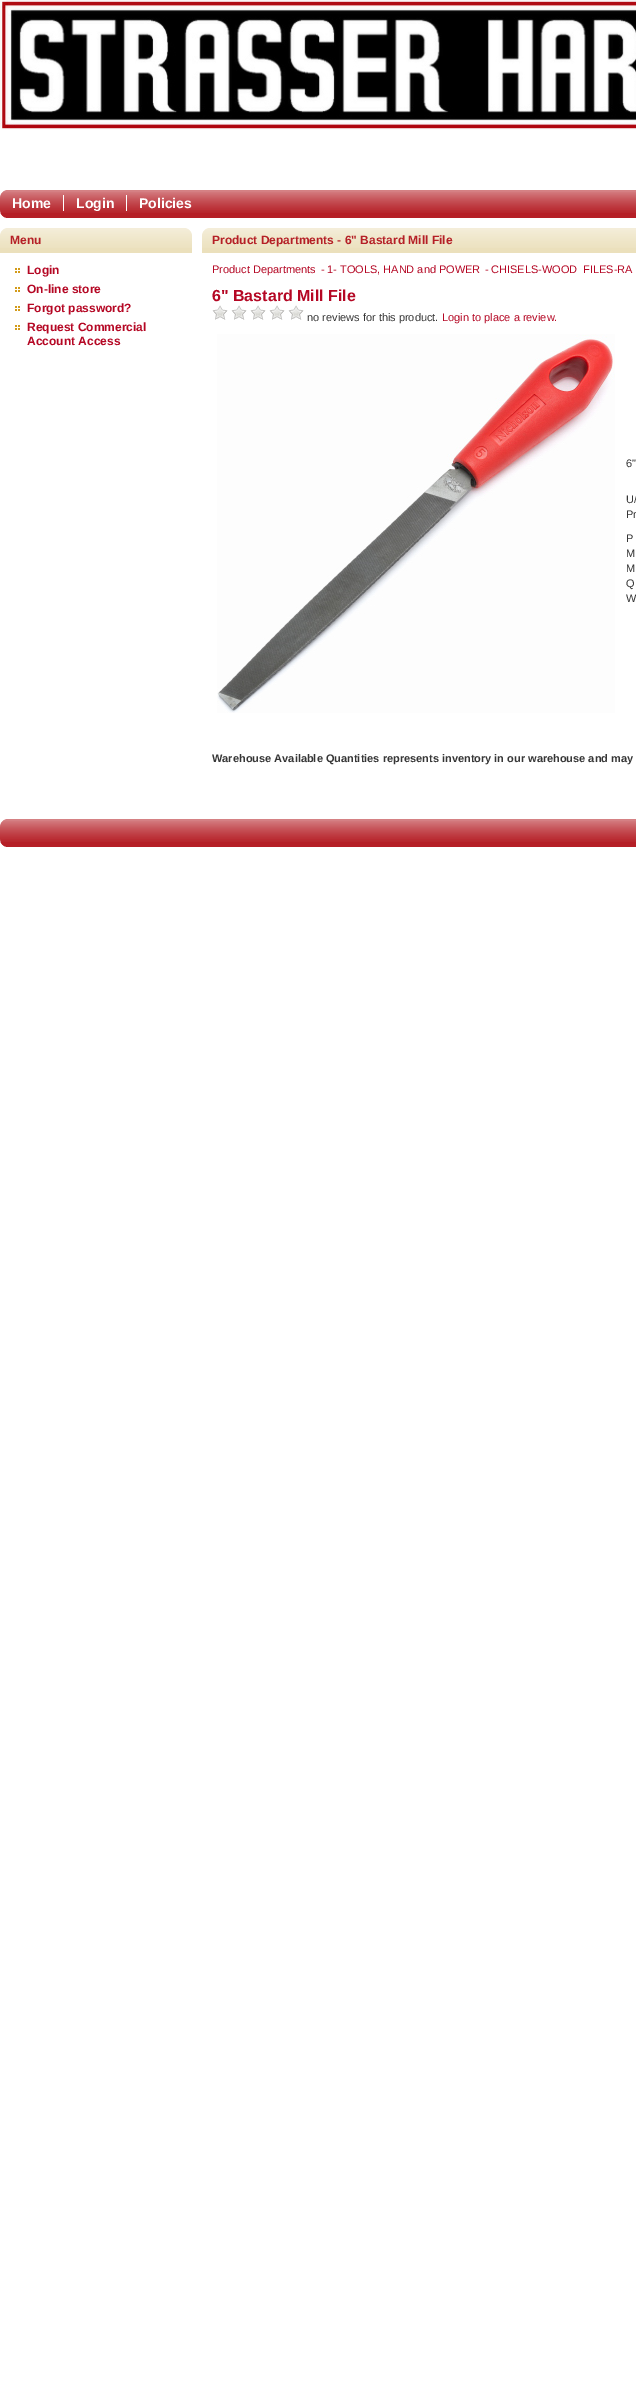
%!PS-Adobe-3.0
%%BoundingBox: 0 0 636 2392
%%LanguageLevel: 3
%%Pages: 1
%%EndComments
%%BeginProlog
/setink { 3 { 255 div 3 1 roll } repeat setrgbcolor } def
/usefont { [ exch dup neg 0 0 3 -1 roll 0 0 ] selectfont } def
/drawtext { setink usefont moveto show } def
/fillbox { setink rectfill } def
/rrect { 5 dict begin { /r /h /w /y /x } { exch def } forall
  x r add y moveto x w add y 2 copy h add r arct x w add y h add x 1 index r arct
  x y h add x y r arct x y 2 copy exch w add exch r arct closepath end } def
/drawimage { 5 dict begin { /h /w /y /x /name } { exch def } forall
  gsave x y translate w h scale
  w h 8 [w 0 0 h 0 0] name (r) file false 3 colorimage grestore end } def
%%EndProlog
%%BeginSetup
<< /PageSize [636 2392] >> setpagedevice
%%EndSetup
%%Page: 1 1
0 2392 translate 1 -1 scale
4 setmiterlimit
0 0 636 2392 255 255 255 fillbox
(assets/img1.rgb) 0 0 636 130 drawimage
181 31 38 setink
0 190 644 28 8 rrect fill
(assets/img2.rgb) 0 190 636 23 drawimage
(Home) 12 208 /LiberationSans-Bold 14 255 255 255 drawtext
63 195 1 16 255 255 255 fillbox
(Login) 76 208 /LiberationSans-Bold 14 255 255 255 drawtext
126 195 1 16 255 255 255 fillbox
(Policies) 139 208 /LiberationSans-Bold 14 255 255 255 drawtext
235 224 188 setink
8 228 moveto 184 228 lineto 188.5 228 192 231.5 192 236 curveto 192 253 lineto 0 253 lineto 0 236 lineto 0 231.5 3.5 228 8 228 curveto closepath fill
(assets/img3.rgb) 0 228 192 20 drawimage
(Menu) 10 244 /LiberationSans-Bold 12 181 31 38 drawtext
(assets/img4.rgb) 15 268 5 5 drawimage
(Login) 27 274 /LiberationSans-Bold 12 181 7 36 drawtext
(assets/img4.rgb) 15 287 5 5 drawimage
(On-line store) 27 293 /LiberationSans-Bold 12 181 7 36 drawtext
(assets/img4.rgb) 15 306 5 5 drawimage
(Forgot password?) 27 312 /LiberationSans-Bold 12 181 7 36 drawtext
(assets/img4.rgb) 15 325 5 5 drawimage
(Request Commercial) 27 331 /LiberationSans-Bold 12 181 7 36 drawtext
(Account Access) 27 345 /LiberationSans-Bold 12 181 7 36 drawtext
235 224 188 setink
210 228 moveto 636 228 lineto 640.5 228 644 231.5 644 236 curveto 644 253 lineto 202 253 lineto 202 236 lineto 202 231.5 205.5 228 210 228 curveto closepath fill
(assets/img5.rgb) 202 228 434 20 drawimage
(Product Departments - 6" Bastard Mill File) 212 244 /LiberationSans-Bold 12 181 31 38 drawtext
(Product Departments) 212 273 /LiberationSans-Regular 11 181 7 36 drawtext
(-) 321 273 /LiberationSans-Regular 11 181 7 36 drawtext
(1- TOOLS, HAND and POWER) 327 273 /LiberationSans-Regular 11 181 7 36 drawtext
(-) 485 273 /LiberationSans-Regular 11 181 7 36 drawtext
(CHISELS-WOOD  FILES-RA) 491 273 /LiberationSans-Regular 11 181 7 36 drawtext
(6" Bastard Mill File) 212 301 /LiberationSans-Bold 16 181 7 36 drawtext
(assets/img6.rgb) 212 305 16 15 drawimage
(assets/img6.rgb) 231 305 16 15 drawimage
(assets/img6.rgb) 250 305 16 15 drawimage
(assets/img6.rgb) 269 305 16 15 drawimage
(assets/img6.rgb) 288 305 16 15 drawimage
(no reviews for this product.) 307 321 /LiberationSans-Regular 11 54 54 54 drawtext
(Login to place a review.) 442 321 /LiberationSans-Regular 11 181 7 36 drawtext
(assets/img7.rgb) 217 334 398 379 drawimage
(6") 626 467 /LiberationSans-Regular 11 54 54 54 drawtext
(U/) 626 503 /LiberationSans-Regular 11 54 54 54 drawtext
(Pr) 626 518 /LiberationSans-Regular 11 54 54 54 drawtext
(P) 626 542 /LiberationSans-Regular 11 54 54 54 drawtext
(M) 626 557 /LiberationSans-Regular 11 54 54 54 drawtext
(M) 626 572 /LiberationSans-Regular 11 54 54 54 drawtext
(Q) 626 587 /LiberationSans-Regular 11 54 54 54 drawtext
(W) 626 602 /LiberationSans-Regular 11 54 54 54 drawtext
(Warehouse Available Quantities represents inventory in our warehouse and may) 212 762 /LiberationSans-Bold 11 54 54 54 drawtext
181 31 38 setink
0 819 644 28 8 rrect fill
(assets/img2.rgb) 0 819 636 23 drawimage
showpage
%%EOF
